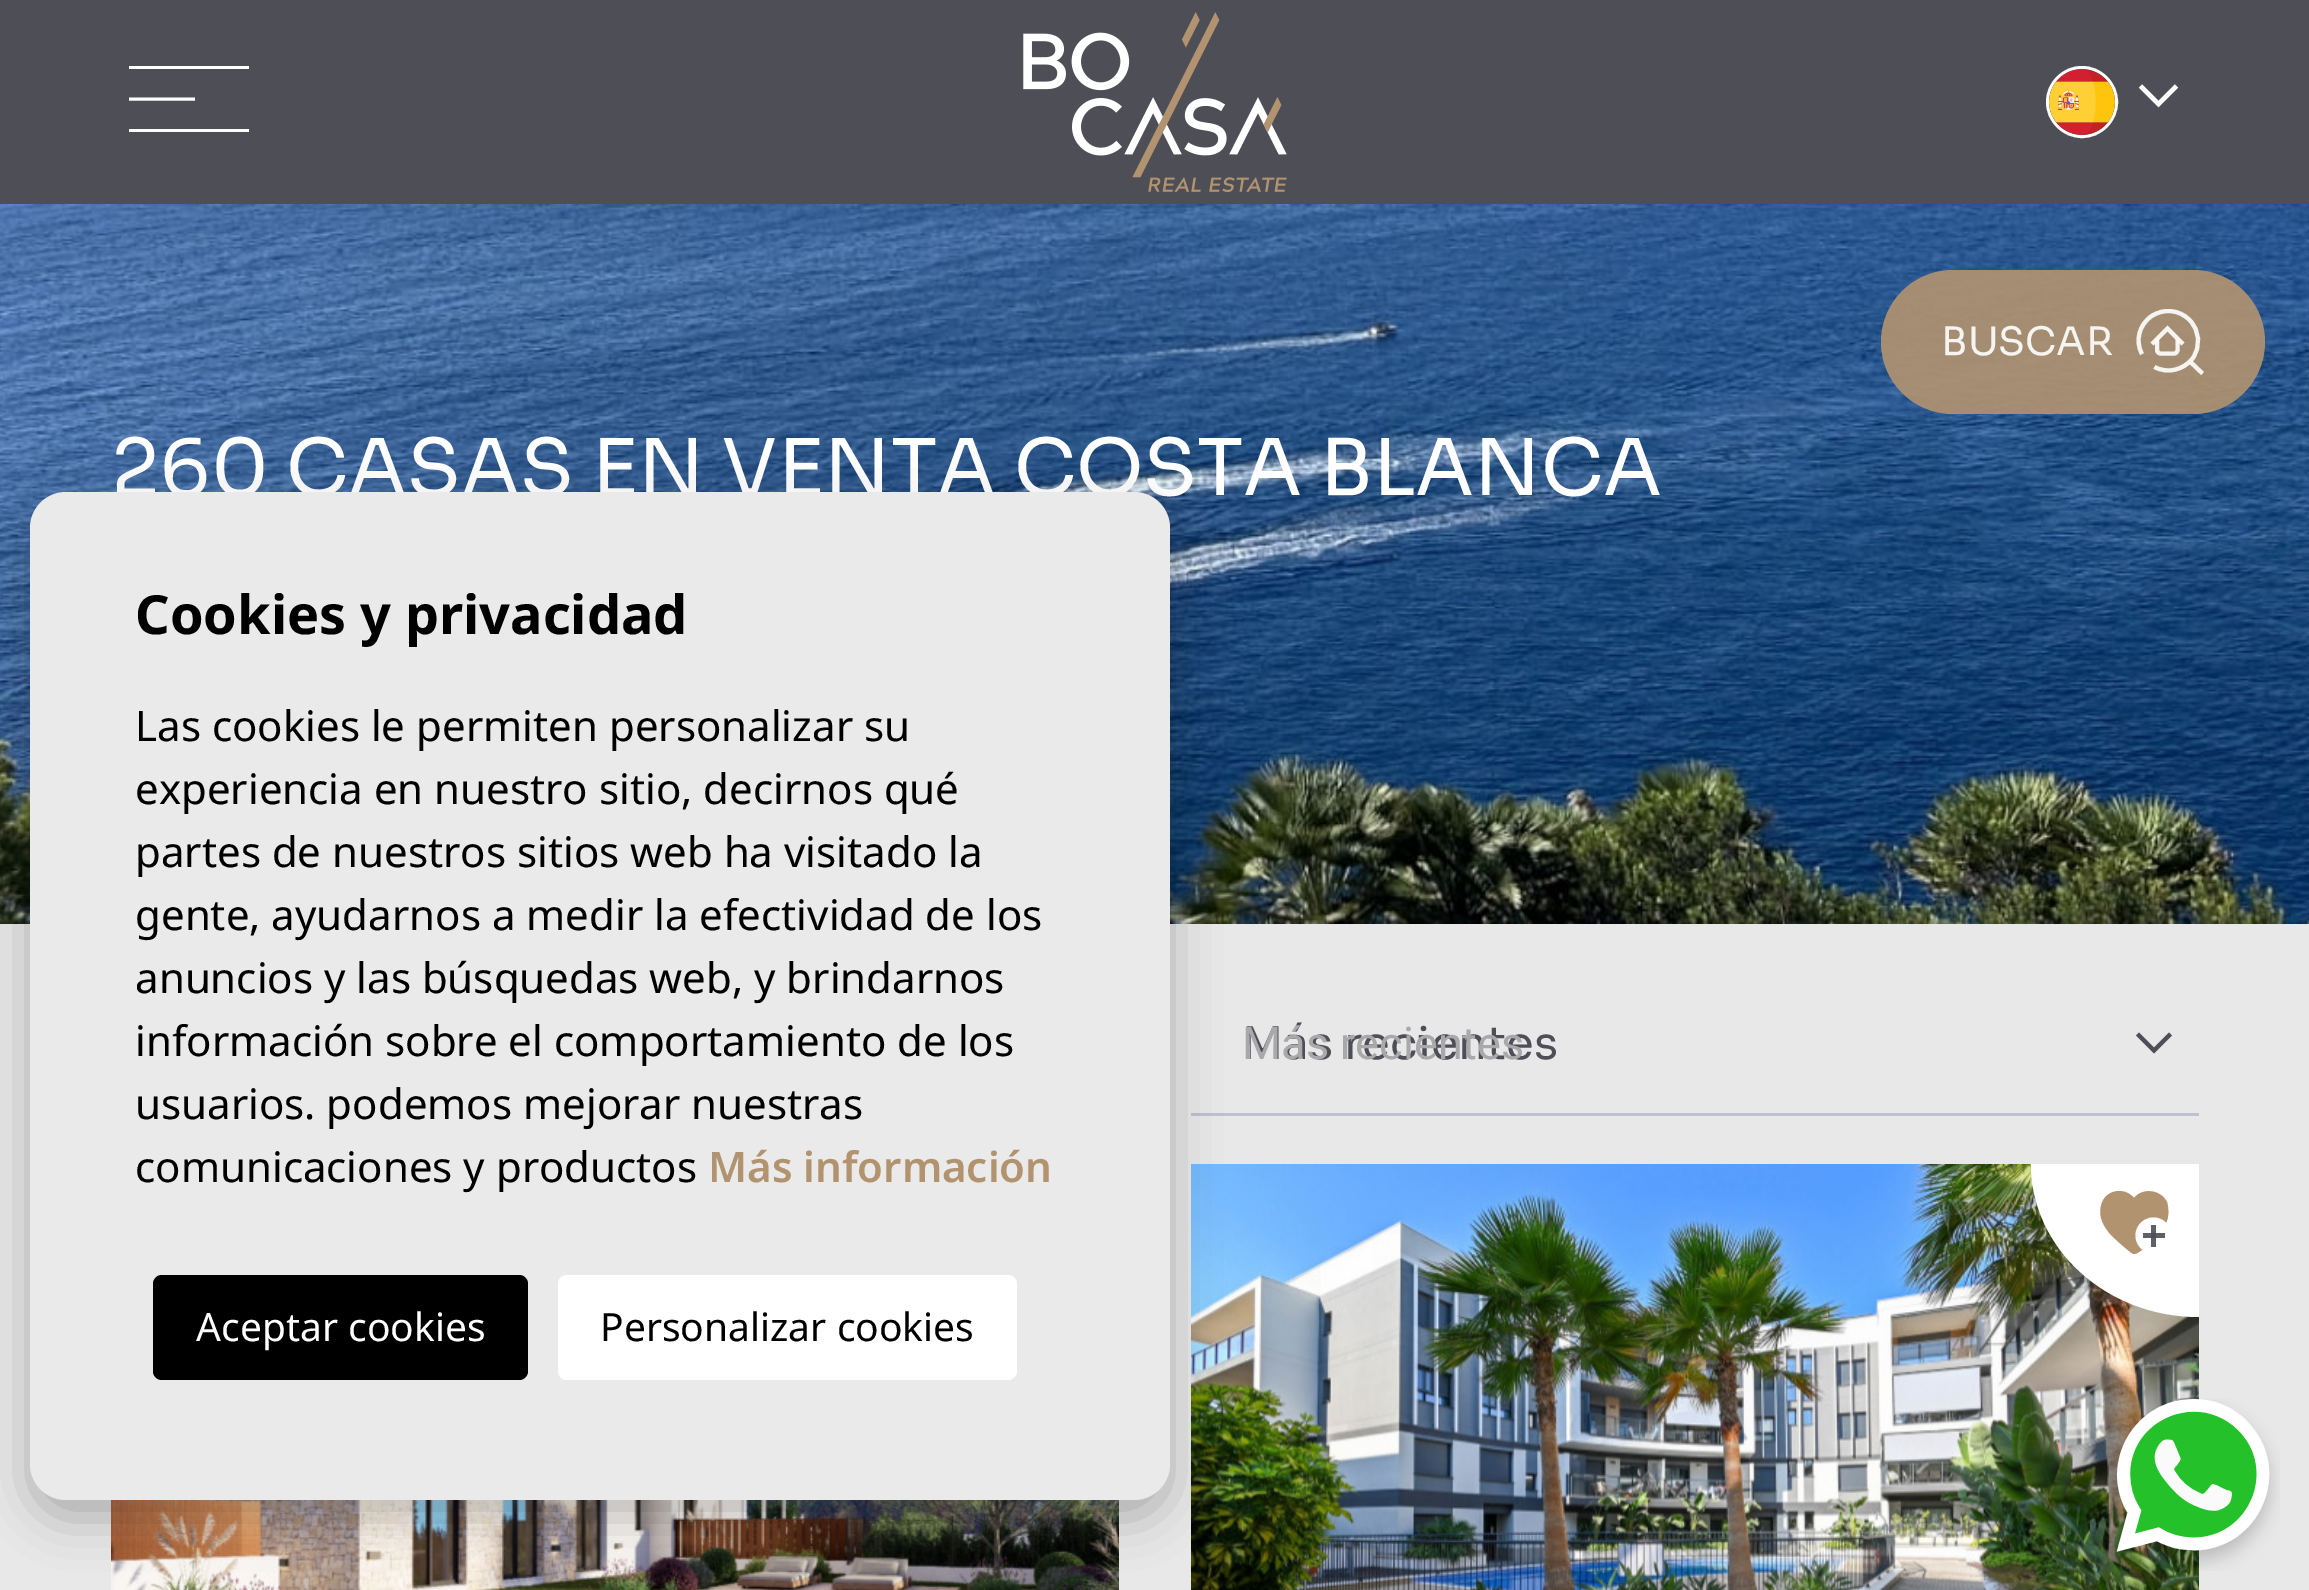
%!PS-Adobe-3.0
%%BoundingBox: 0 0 2309 1590
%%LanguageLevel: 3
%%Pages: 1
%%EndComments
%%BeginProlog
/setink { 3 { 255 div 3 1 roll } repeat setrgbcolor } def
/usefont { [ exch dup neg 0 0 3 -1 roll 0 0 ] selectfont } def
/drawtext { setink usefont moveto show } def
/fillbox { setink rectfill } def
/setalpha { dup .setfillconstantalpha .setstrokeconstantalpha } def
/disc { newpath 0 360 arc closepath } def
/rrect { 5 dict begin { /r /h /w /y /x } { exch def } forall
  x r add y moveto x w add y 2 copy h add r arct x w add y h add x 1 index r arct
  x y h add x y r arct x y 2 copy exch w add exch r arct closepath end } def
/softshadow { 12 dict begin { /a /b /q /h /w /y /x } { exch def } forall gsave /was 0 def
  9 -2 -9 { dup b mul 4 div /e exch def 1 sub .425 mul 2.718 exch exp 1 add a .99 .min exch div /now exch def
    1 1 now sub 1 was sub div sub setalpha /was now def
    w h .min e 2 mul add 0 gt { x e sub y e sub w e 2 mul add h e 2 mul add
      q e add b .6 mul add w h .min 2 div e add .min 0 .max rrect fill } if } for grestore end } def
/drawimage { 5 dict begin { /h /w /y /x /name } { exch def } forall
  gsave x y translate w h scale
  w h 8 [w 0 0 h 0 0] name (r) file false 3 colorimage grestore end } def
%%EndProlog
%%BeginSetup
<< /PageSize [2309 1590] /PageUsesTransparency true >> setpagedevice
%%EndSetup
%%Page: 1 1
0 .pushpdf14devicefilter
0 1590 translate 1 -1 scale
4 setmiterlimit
0 0 2309 1590 232 232 232 fillbox
0 0 2309 204 77 78 86 fillbox
129 66 120 3 255 255 255 fillbox
3 setlinewidth
129 99 moveto 195 99 lineto stroke
129 129 120 3 255 255 255 fillbox
(assets/img1.rgb) 1023 12 264 180 drawimage
2082 102 34.5 disc stroke
(assets/img2.rgb) 2049 69 66 66 drawimage
4.5 setlinewidth
2140.5 86 moveto 2158.5 104 lineto 2176.5 86 lineto stroke
(assets/img3.rgb) 0 204 2309 720 drawimage
0.9 setalpha
178 147 111 setink
1881 270 384 144 72 rrect fill
1 setalpha
(BUSCAR) 1941 355 /Sora-Regular 39 246 244 241 drawtext
0.9 setalpha
255 255 255 setink
4.1 setlinewidth
2154.5 367 moveto 2167.5 374 2183.5 370 2192.5 358.5 curveto 2201 346.5 2200 330.5 2189.5 320 curveto 2179.5 309.5 2163 308 2151 316.5 curveto 2139 325 2135 341 2142 354 curveto stroke
2190 361.5 moveto 2202.5 373.5 lineto 2157 338.5 moveto 2157 350 lineto 2157 351.5 2158.5 353.5 2160.5 353.5 curveto 2174 353.5 lineto 2176 353.5 2177.5 351.5 2177.5 350 curveto 2177.5 338.5 lineto stroke
2152 344 moveto 2167.5 328.5 lineto 2183 344 lineto stroke
1 setalpha
(260 CASAS EN VENTA COSTA BLANCA) 111 495 /Sora-Regular 78 255 255 255 drawtext
1191 1113 1008 3 192 193 208 fillbox
77 78 86 setink
2137.5 1034 moveto 2154 1050.5 lineto 2170.5 1034 lineto stroke
(Más recientes) 1242 1059 /Sora-Regular 45 77 78 86 drawtext
(Más recientes) 1242 1059 /Roboto-Regular 45 169 169 172 drawtext
(assets/img4.rgb) 111 1500 1008 90 drawimage
(assets/img5.rgb) 1191 1164 1008 426 drawimage
255 255 255 setink
2031 1164 moveto 2199 1164 lineto 2199 1317 lineto 2106 1317 2031 1248 2031 1164 curveto closepath fill
178 147 111 setink
2167 1202 moveto 2169 1209 2169 1217 2166 1223 curveto 2161 1234 2151 1243 2142 1250 curveto 2140 1251 2137 1254 2134 1254 curveto 2131 1254 2112 1236 2111 1235 curveto 2104 1227 2098 1217 2101 1206 curveto 2104 1190 2124 1186 2134 1198 curveto 2143 1187 2161 1190 2167 1202 curveto closepath fill
255 255 255 setink
2153.5 1235.5 18 disc fill
2151 1225 5 22 95 96 103 fillbox
0.9 setalpha
2143 1233 22 5 77 78 86 fillbox
1 setalpha
0 0 0 setink
30 510 1140 1008 36 24 0.25 softshadow
234 234 234 setink
30 492 1140 1008 36 rrect fill
(Cookies y privacidad) 135 634 /NotoSans-Bold 54 0 0 0 drawtext
(Las cookies le permiten personalizar su) 135 741 /NotoSans-Regular 42 0 0 0 drawtext
(experiencia en nuestro sitio, decirnos qué) 135 804 /NotoSans-Regular 42 0 0 0 drawtext
(partes de nuestros sitios web ha visitado la) 135 867 /NotoSans-Regular 42 0 0 0 drawtext
(gente, ayudarnos a medir la efectividad de los) 135 930 /NotoSans-Regular 42 0 0 0 drawtext
(anuncios y las búsquedas web, y brindarnos) 135 993 /NotoSans-Regular 42 0 0 0 drawtext
(información sobre el comportamiento de los) 135 1056 /NotoSans-Regular 42 0 0 0 drawtext
(usuarios. podemos mejorar nuestras) 135 1119 /NotoSans-Regular 42 0 0 0 drawtext
(comunicaciones y productos) 135 1182 /NotoSans-Regular 42 0 0 0 drawtext
(Más información) 708 1182 /NotoSans-SemiBold 42 178 147 111 drawtext
0 0 0 setink
153 1275 375 105 9 rrect fill
(Aceptar cookies) 196 1341 /NotoSans-Regular 39 255 255 255 drawtext
558 1275 459 105 9 rrect fill
(Personalizar cookies) 600 1341 /NotoSans-Regular 39 0 0 0 drawtext
(assets/img6.rgb) 2106 1398 174 173 drawimage
.poppdf14devicefilter showpage
%%EOF
